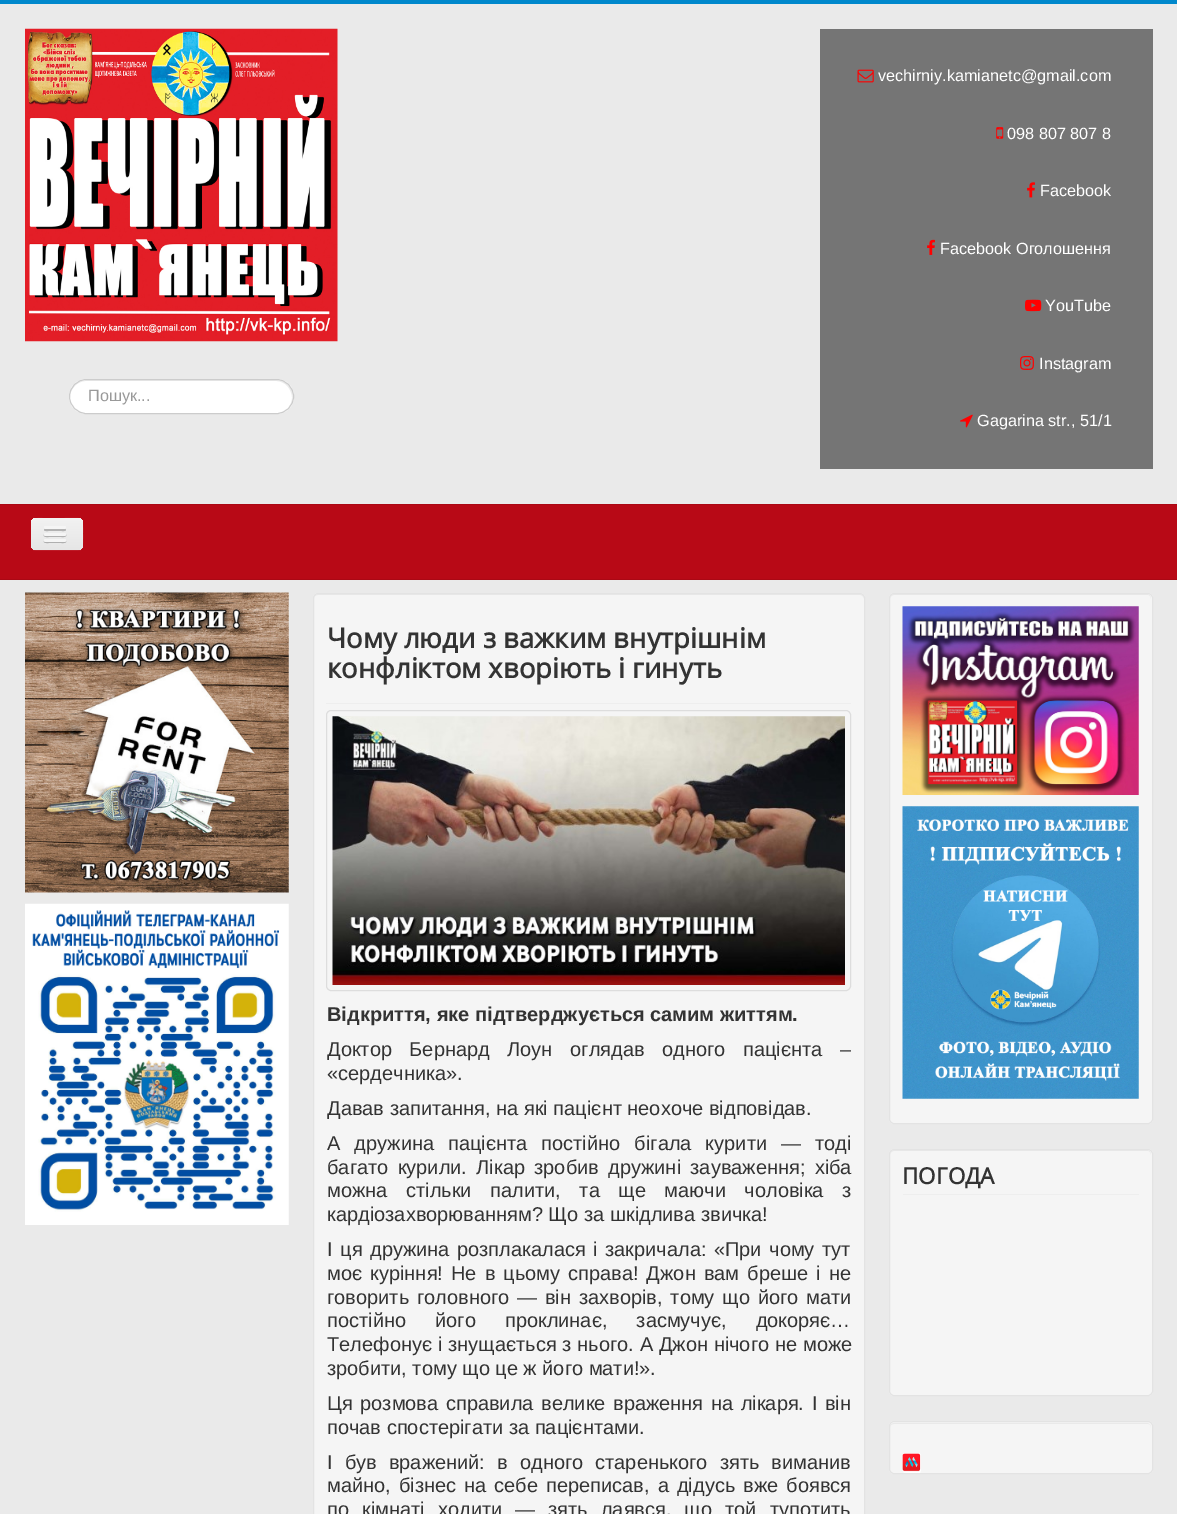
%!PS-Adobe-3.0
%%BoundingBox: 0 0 1177 1514
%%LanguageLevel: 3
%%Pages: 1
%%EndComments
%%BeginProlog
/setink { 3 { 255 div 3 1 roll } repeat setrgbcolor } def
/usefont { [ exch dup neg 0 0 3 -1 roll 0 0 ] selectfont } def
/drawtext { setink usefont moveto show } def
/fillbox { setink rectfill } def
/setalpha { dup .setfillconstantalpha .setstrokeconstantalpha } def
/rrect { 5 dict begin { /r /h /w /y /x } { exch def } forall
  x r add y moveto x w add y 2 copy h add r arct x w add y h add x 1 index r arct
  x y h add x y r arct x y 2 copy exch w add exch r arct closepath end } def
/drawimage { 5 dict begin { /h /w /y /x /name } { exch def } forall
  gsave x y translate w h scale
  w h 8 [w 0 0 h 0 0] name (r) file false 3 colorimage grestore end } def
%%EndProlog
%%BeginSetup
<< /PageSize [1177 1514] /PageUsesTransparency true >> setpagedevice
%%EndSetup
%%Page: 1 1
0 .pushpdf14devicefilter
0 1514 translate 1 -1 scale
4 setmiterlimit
0 0 1177 1514 234 234 234 fillbox
0 0 1177 4 0 136 204 fillbox
(assets/img1.rgb) 25 28 313 314 drawimage
255 255 255 setink
69 379 225 35 17.5 rrect fill
236 236 236 setink
86 381 moveto 276 381 lineto 285 381 292 389 292 398 curveto 292 402 290 406 288 408 curveto 294 402 295 391 288 385 curveto 279 375 251 380 245 380 curveto 118 380 lineto 106 380 69 373 70 397 curveto 70 389 77 381 86 381 curveto closepath fill
204 204 204 setink
69.5 379.5 224 34 17 rrect stroke
(Пошук...) 88 401 /LiberationSans-Regular 16.25 153 153 153 drawtext
820 29 333 440 117 117 117 fillbox
(assets/img2.rgb) 857 69 17 14 drawimage
(vechirniy.kamianetc@gmail.com) 878 81 /LiberationSans-Regular 16.25 255 255 255 drawtext
(assets/img3.rgb) 996 127 8 12 drawimage
(098 807 807 8) 1007 139 /LiberationSans-Regular 16.25 255 255 255 drawtext
(assets/img4.rgb) 1027 182 8 16 drawimage
(Facebook) 1040 196 /LiberationSans-Regular 16.25 255 255 255 drawtext
(assets/img5.rgb) 927 239 8 16 drawimage
(Facebook Оголошення) 940 254 /LiberationSans-Regular 16.25 255 255 255 drawtext
(assets/img6.rgb) 1025 299 17 13 drawimage
(YouTube) 1045 311 /LiberationSans-Regular 16.25 255 255 255 drawtext
(assets/img7.rgb) 1020 356 14 14 drawimage
(Instagram) 1039 369 /LiberationSans-Regular 16.25 255 255 255 drawtext
(assets/img8.rgb) 960 414 13 14 drawimage
(Gagarina str., 51/1) 977 426 /LiberationSans-Regular 16.25 255 255 255 drawtext
0 505 1177 74 184 9 22 fillbox
0 504 1177 1 170 8 20 fillbox
0 579 1177 1 170 8 20 fillbox
189 27 39 setink
31 522 moveto 31 539 lineto 31 551 31 551 43 551 curveto 71 551 lineto 83 551 83 551 83 539 curveto 83 535 84 525 82 522 curveto 82 538 lineto 82 550 83 550 71 550 curveto 43 550 lineto 34 550 31 551 31 541 curveto closepath fill
gsave 31 518 52 32 5 rrect clip newpath
<< /ShadingType 2 /ColorSpace /DeviceRGB /Coords [57 518 57 550] /Extend [true true] /Function << /FunctionType 2 /Domain [0 1] /C0 [0.949 0.949 0.949] /C1 [0.902 0.902 0.902] /N 1 >> >> shfill grestore
0.1 setalpha
255 255 255 setink
36 519 moveto 64 519 lineto 81 519 82 515 82 531 curveto 82 535 83 545 81 549 curveto 84 546 83 537 83 534 curveto 83 515 84 518 64 518 curveto 43 518 lineto 37 518 31 517 31 524 curveto 31 521 33 519 36 519 curveto closepath fill
1 setalpha
178 178 178 setink
44.5 528.5 moveto 44 530 lineto 44.5 531.5 47.5 531 48.5 531 curveto 61.5 531 lineto 62.5 531 65.5 531.5 66 530 curveto 65.5 528.5 lineto closepath fill
245 245 245 setink
44 526 22 3 1.5 rrect fill
176 176 176 setink
44 534.5 moveto 42.5 537.5 48 537 48.5 537 curveto 61.5 537 lineto 62 537 67.5 537.5 66 534.5 curveto 65 535 45 535 44 534.5 curveto closepath fill
245 245 245 setink
44 533 22 3 1.5 rrect fill
175 175 175 setink
44 541 moveto 43 543.5 48 543 48.5 543 curveto 61.5 543 lineto 62 543 67 543.5 66 541 curveto 65 541.5 45 541.5 44 541 curveto closepath fill
245 245 245 setink
44 539 22 3 1.5 rrect fill
(assets/img9.rgb) 25 592 264 301 drawimage
(assets/img10.rgb) 25 903 264 322 drawimage
313 593 552 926 5 rrect fill
233 233 233 setink
318 595 moveto 860 595 lineto 862 595 864 597 864 599 curveto 864 598 lineto 864 596 862 594 860 594 curveto 318 594 lineto 316 594 314 596 314 598 curveto 314 599 lineto 314 597 315 595 318 595 curveto closepath fill
227 227 227 setink
313.5 593.5 551 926 4.5 rrect stroke
326 703 525 1 238 238 238 fillbox
(Чому люди з важким внутрішнім) 327 648 /OpenSans-Bold 27.5 51 51 51 drawtext
(конфліктом хворіють і гинуть) 327 678 /OpenSans-Bold 27.5 51 51 51 drawtext
221 221 221 setink
326.5 710.5 524 280 4.5 rrect stroke
(assets/img11.rgb) 332 716 513 269 drawimage
(Відкриття, яке підтверджується самим життям.) 327 1021 /LiberationSans-Bold 20 51 51 51 drawtext
/LiberationSans-Regular 20 usefont
327 1056 moveto 12 0 32 (Доктор Бернард Лоун оглядав одного пацієнта –) widthshow
(«сердечника».) 327 1080 /LiberationSans-Regular 20 51 51 51 drawtext
(Давав запитання, на які пацієнт неохоче відповідав.) 327 1115 /LiberationSans-Regular 20 51 51 51 drawtext
327 1150 moveto 8.5 0 32 (А дружина пацієнта постійно бігала курити — тоді) widthshow
327 1174 moveto 3.75 0 32 (багато курили. Лікар зробив дружині зауваження; хіба) widthshow
327 1197 moveto 13 0 32 (можна стільки палити, та ще маючи чоловіка з) widthshow
(кардіозахворюванням? Що за шкідлива звичка!) 327 1221 /LiberationSans-Regular 20 51 51 51 drawtext
327 1256 moveto 2 0 32 (І ця дружина розплакалася і закричала: «При чому тут) widthshow
327 1280 moveto 2.5 0 32 (моє куріння! Не в цьому справа! Джон вам бреше і не) widthshow
327 1304 moveto 2.25 0 32 (говорить головного — він захворів, тому що його мати) widthshow
327 1327 moveto 23.5 0 32 (постійно його проклинає, засмучує, докоряє…) widthshow
327 1351 moveto 0.25 0 32 (Телефонує і знущається з нього. А Джон нічого не може) widthshow
(зробити, тому що це ж його мати!».) 327 1375 /LiberationSans-Regular 20 51 51 51 drawtext
327 1410 moveto 2 0 32 (Ця розмова справила велике враження на лікаря. І він) widthshow
(почав спостерігати за пацієнтами.) 327 1434 /LiberationSans-Regular 20 51 51 51 drawtext
327 1469 moveto 6.5 0 32 (І був вражений: в одного старенького зять виманив) widthshow
327 1492 moveto 2.5 0 32 (майно, бізнес на себе переписав, а дідусь вже боявся) widthshow
327 1516 moveto 7.5 0 32 (по кімнаті ходити — зять лаявся, що той тупотить) widthshow
245 245 245 setink
889 593 264 531 5 rrect fill
233 233 233 setink
894 595 moveto 1148 595 lineto 1150 595 1151 597 1151 599 curveto 1151 598 lineto 1151 596 1149 594 1147 594 curveto 894 594 lineto 892 594 890 596 890 598 curveto 890 599 lineto 890 597 892 595 894 595 curveto closepath fill
227 227 227 setink
889.5 593.5 263 530 4.5 rrect stroke
(assets/img12.rgb) 902 606 237 189 drawimage
(assets/img13.rgb) 902 806 237 293 drawimage
245 245 245 setink
889 1149 264 247 5 rrect fill
233 233 233 setink
894 1151 moveto 1148 1151 lineto 1150 1151 1151 1153 1151 1155 curveto 1151 1154 lineto 1151 1152 1149 1150 1147 1150 curveto 894 1150 lineto 892 1150 890 1152 890 1154 curveto 890 1155 lineto 890 1153 892 1151 894 1151 curveto closepath fill
227 227 227 setink
889.5 1149.5 263 246 4.5 rrect stroke
903 1194 236 1 238 238 238 fillbox
(ПОГОДА) 902 1184 /OpenSans-Bold 22.5 51 51 51 drawtext
245 245 245 setink
889 1421 264 53 5 rrect fill
233 233 233 setink
894 1424 moveto 1148 1424 lineto 1150 1424 1151 1425 1151 1428 curveto 1151 1427 lineto 1151 1425 1149 1423 1147 1423 curveto 894 1423 lineto 892 1423 890 1425 890 1427 curveto 890 1428 lineto 890 1425 892 1424 894 1424 curveto closepath fill
227 227 227 setink
889.5 1421.5 263 52 4.5 rrect stroke
255 255 255 setink
903 1453 18 20 2.5 rrect fill
(assets/img14.rgb) 902 1453 19 19 drawimage
.poppdf14devicefilter showpage
%%EOF
